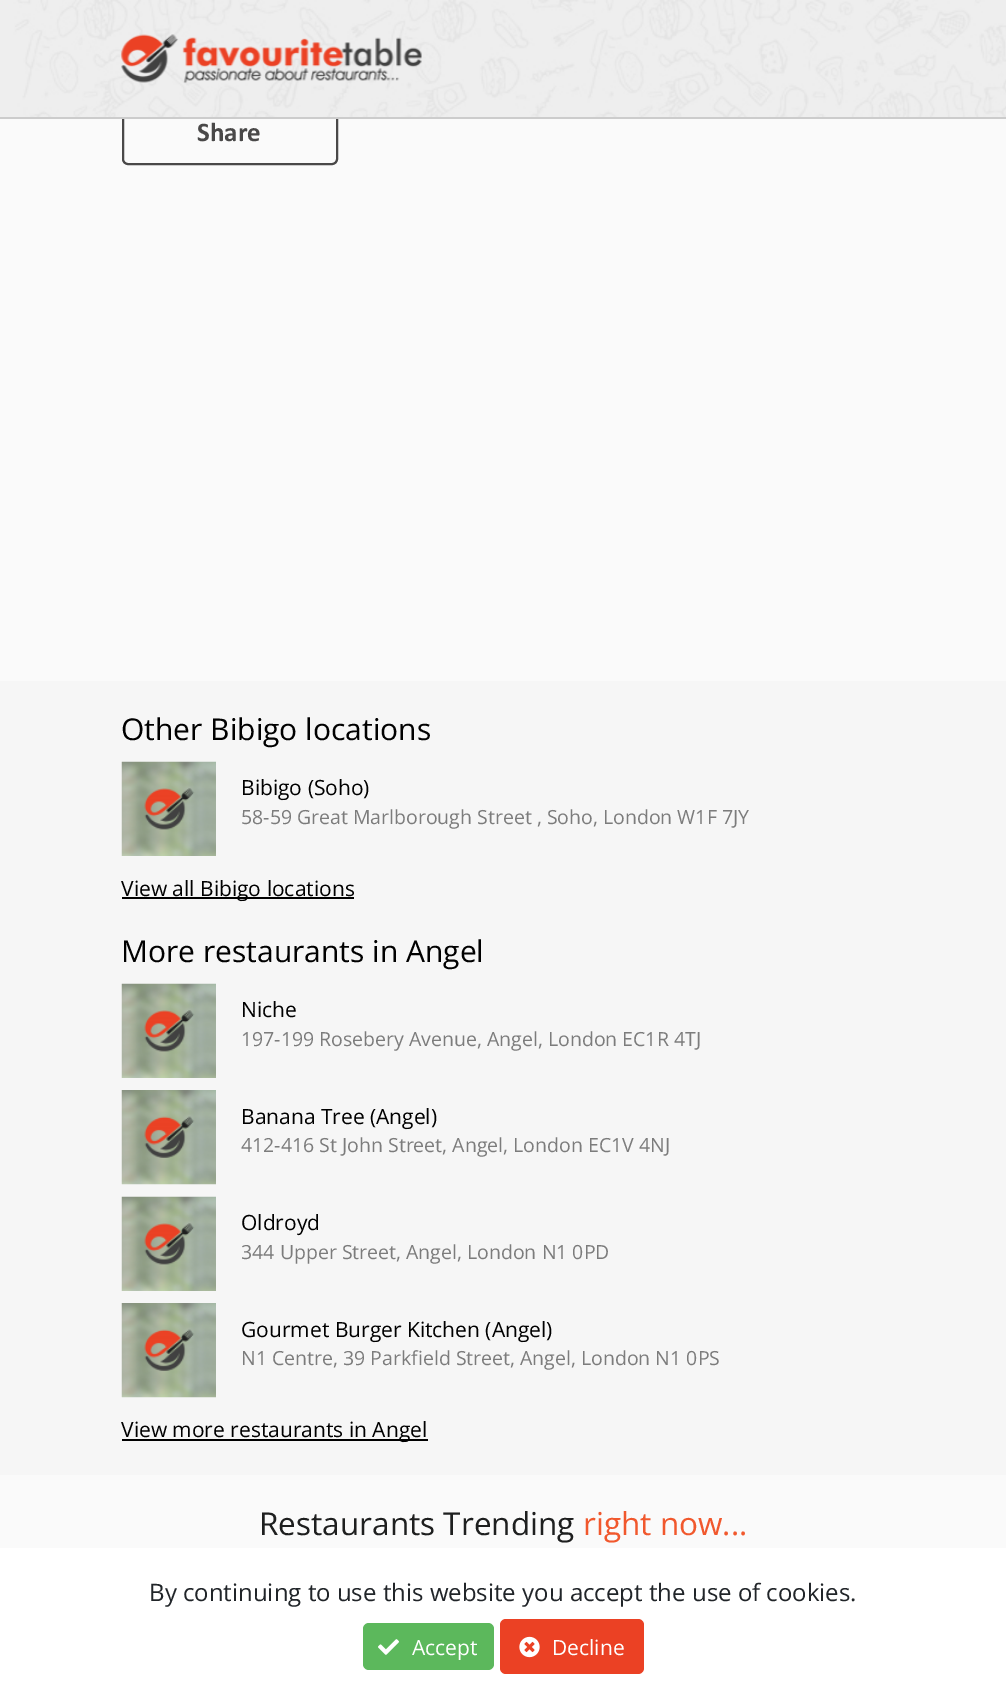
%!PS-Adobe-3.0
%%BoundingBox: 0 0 1006 1703
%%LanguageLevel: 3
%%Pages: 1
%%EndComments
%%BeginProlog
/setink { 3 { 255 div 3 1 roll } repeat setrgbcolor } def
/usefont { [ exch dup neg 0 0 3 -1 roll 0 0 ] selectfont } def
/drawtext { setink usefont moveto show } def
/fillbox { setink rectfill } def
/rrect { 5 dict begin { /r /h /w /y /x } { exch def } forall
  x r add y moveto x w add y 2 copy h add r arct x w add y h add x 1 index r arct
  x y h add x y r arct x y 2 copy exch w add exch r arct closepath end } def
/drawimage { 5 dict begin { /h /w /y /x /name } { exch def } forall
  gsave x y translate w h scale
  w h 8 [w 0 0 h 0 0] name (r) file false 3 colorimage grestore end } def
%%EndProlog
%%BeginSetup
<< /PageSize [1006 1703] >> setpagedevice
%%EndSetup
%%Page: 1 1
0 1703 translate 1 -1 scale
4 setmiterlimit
0 0 1006 1703 250 250 250 fillbox
73 72 72 setink
2 setlinewidth
123 105 214 59 5 rrect stroke
(assets/img1.rgb) 0 0 1006 117 drawimage
0 117 1006 2 204 204 204 fillbox
(assets/img2.rgb) 121 34 301 49 drawimage
(Share) 197 141 /Calibri-Bold 27 73 72 72 drawtext
0 681 1006 794 246 246 246 fillbox
(Other Bibigo locations) 121 740 /OpenSans-Regular 30 0 0 0 drawtext
(assets/img3.rgb) 121 761 95 95 drawimage
(Bibigo \(Soho\)) 241 795 /OpenSans-Regular 21 0 0 0 drawtext
(58-59 Great Marlborough Street , Soho, London W1F 7JY) 241 824 /OpenSans-Regular 19.5 124 124 124 drawtext
122 897 232 2 0 0 0 fillbox
(View all Bibigo locations) 121 896 /OpenSans-Regular 21 0 0 0 drawtext
(More restaurants in Angel) 121 962 /OpenSans-Regular 30 0 0 0 drawtext
(assets/img3.rgb) 121 983 95 95 drawimage
(Niche) 241 1017 /OpenSans-Regular 21 0 0 0 drawtext
(197-199 Rosebery Avenue, Angel, London EC1R 4TJ) 241 1046 /OpenSans-Regular 19.5 124 124 124 drawtext
(assets/img4.rgb) 121 1090 95 95 drawimage
(Banana Tree \(Angel\)) 241 1124 /OpenSans-Regular 21 0 0 0 drawtext
(412-416 St John Street, Angel, London EC1V 4NJ) 241 1152 /OpenSans-Regular 19.5 124 124 124 drawtext
(assets/img3.rgb) 121 1196 95 95 drawimage
(Oldroyd) 241 1230 /OpenSans-Regular 21 0 0 0 drawtext
(344 Upper Street, Angel, London N1 0PD) 241 1259 /OpenSans-Regular 19.5 124 124 124 drawtext
(assets/img4.rgb) 121 1303 95 95 drawimage
(Gourmet Burger Kitchen \(Angel\)) 241 1337 /OpenSans-Regular 21 0 0 0 drawtext
(N1 Centre, 39 Parkfield Street, Angel, London N1 0PS) 241 1365 /OpenSans-Regular 19.5 124 124 124 drawtext
122 1439 306 2 0 0 0 fillbox
(View more restaurants in Angel) 121 1437 /OpenSans-Regular 21 0 0 0 drawtext
(Restaurants Trending) 259 1535 /OpenSans-Regular 31.5 30 31 31 drawtext
(right now...) 583 1535 /OpenSans-Regular 31.5 241 88 45 drawtext
0 1548 1006 155 255 255 255 fillbox
(By continuing to use this website you accept the use of cookies.) 149 1601 /OpenSans-Regular 24 33 37 41 drawtext
92 184 92 setink
363 1623 131 47 6 rrect fill
(assets/img5.rgb) 378 1639 21 16 drawimage
(Accept) 412 1655 /OpenSans-Regular 21 255 255 255 drawtext
235 65 36 setink
500 1619 144 55 6 rrect fill
(assets/img6.rgb) 519 1636 21 22 drawimage
(Decline) 552 1655 /OpenSans-Regular 21 255 255 255 drawtext
showpage
%%EOF
